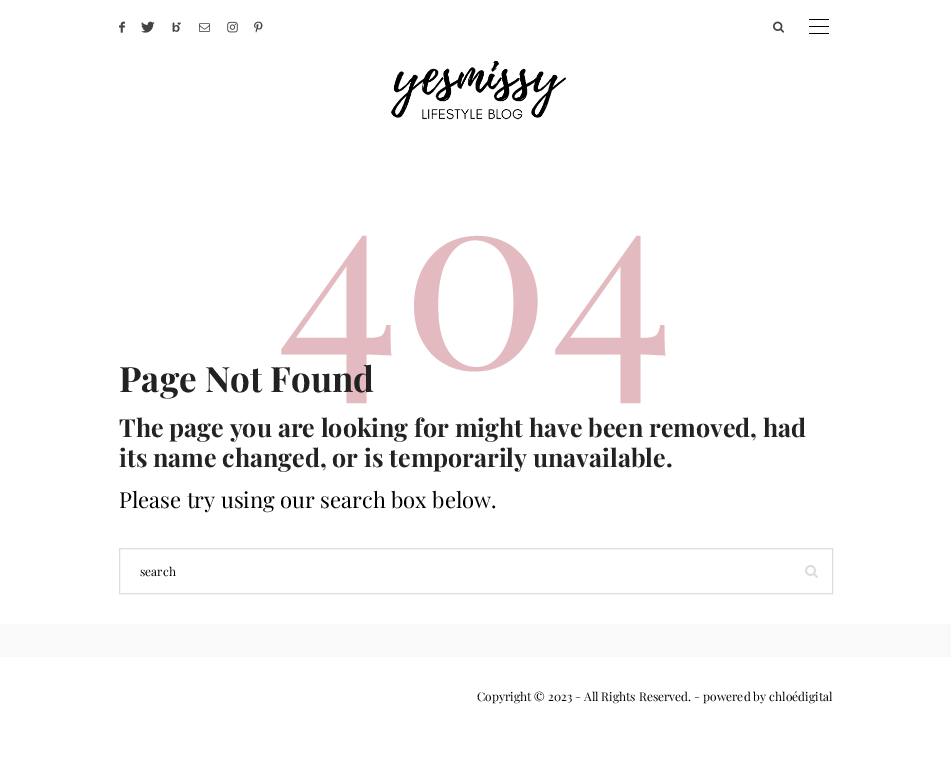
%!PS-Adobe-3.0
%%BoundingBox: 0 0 951 780
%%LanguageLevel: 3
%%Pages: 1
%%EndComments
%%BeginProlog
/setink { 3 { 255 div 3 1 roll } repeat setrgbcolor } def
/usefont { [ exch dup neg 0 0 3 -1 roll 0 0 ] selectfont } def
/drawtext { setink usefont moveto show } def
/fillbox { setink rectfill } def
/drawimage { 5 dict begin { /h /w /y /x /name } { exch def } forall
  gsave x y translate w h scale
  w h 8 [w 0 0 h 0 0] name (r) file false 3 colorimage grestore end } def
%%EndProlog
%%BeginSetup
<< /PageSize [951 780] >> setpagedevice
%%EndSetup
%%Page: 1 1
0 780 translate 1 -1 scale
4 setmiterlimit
0 0 951 780 255 255 255 fillbox
(assets/img1.rgb) 119 21 6 12 drawimage
(assets/img2.rgb) 141 21 14 12 drawimage
(assets/img3.rgb) 172 22 9 10 drawimage
(assets/img4.rgb) 199 23 11 9 drawimage
(assets/img5.rgb) 227 21 11 12 drawimage
(assets/img6.rgb) 254 21 9 12 drawimage
(assets/img7.rgb) 773 21 12 12 drawimage
809 26 20 1 0 0 0 fillbox
809 19 20 1 0 0 0 fillbox
809 33 20 1 0 0 0 fillbox
(assets/img8.rgb) 391 60 175 60 drawimage
(404) 277 368 /PlayfairDisplay-Regular 250 227 186 191 drawtext
(Page Not Found) 119 392 /PlayfairDisplay-Bold 35 34 34 34 drawtext
(The page you are looking for might have been removed, had) 119 437 /PlayfairDisplay-Bold 25 34 34 34 drawtext
(its name changed, or is temporarily unavailable.) 119 467 /PlayfairDisplay-Bold 25 34 34 34 drawtext
(Please try using our search box below.) 119 508 /PlayfairDisplay-Regular 22 0 0 0 drawtext
221 221 221 setink
119.5 548.5 713 45 rectstroke
(search) 140 576 /PlayfairDisplay-Regular 12 0 0 0 drawtext
(assets/img9.rgb) 805 565 13 13 drawimage
0 624 951 33 249 249 249 fillbox
(Copyright © 2023 - All Rights Reserved. - powered by chloédigital) 477 701 /PlayfairDisplay-Regular 12 0 0 0 drawtext
showpage
%%EOF
